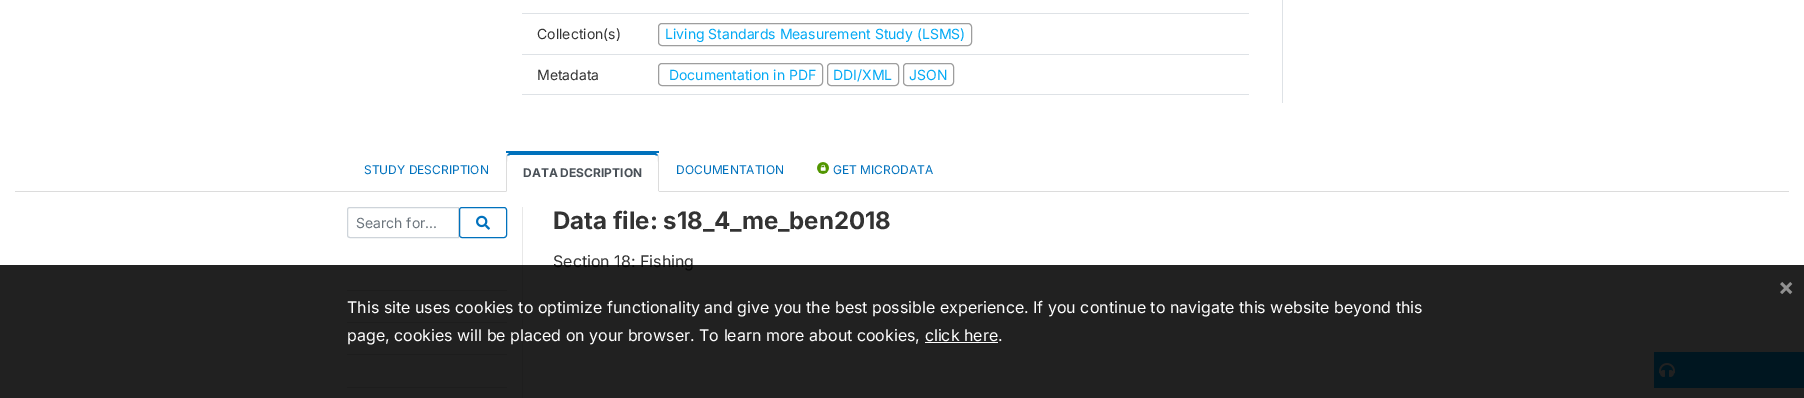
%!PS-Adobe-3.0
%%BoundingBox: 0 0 1804 398
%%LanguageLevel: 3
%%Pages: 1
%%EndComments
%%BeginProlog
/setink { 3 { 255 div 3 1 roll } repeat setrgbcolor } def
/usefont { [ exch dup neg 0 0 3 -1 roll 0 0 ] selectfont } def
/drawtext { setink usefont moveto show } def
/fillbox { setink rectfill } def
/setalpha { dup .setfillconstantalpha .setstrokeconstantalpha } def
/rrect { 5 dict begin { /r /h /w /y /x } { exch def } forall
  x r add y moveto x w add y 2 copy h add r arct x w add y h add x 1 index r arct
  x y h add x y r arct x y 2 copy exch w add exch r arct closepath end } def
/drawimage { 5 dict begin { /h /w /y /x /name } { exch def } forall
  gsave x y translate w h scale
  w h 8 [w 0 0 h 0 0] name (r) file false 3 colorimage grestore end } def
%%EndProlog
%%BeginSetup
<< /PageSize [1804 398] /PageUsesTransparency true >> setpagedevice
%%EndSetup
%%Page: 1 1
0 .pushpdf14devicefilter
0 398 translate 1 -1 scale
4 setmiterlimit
0 0 1804 398 255 255 255 fillbox
15 191 1774 1 220 220 220 fillbox
522 13 727 1 222 226 230 fillbox
522 54 727 1 222 226 230 fillbox
(Collection\(s\)) 537 39 /Inter-Regular 14 51 51 51 drawtext
158 158 158 setink
658.5 23.5 313 22 3.5 rrect stroke
(Living Standards Measurement Study \(LSMS\)) 665 39 /Inter-Regular 14 3 169 244 drawtext
522 94 727 1 222 226 230 fillbox
(Metadata) 537 80 /Inter-Regular 14 51 51 51 drawtext
158 158 158 setink
658.5 63.5 164 22 3.5 rrect stroke
(Documentation in PDF) 669 80 /Inter-Regular 14 3 169 244 drawtext
158 158 158 setink
827.5 63.5 71 22 3.5 rrect stroke
(DDI/XML) 833 80 /Inter-Regular 14 3 169 244 drawtext
158 158 158 setink
903.5 63.5 50 22 3.5 rrect stroke
(JSON) 909 80 /Inter-Regular 14 3 169 244 drawtext
1282 0 1 103 222 226 230 fillbox
(STUDY DESCRIPTION) 364 174 /Inter-Regular 12 0 113 189 drawtext
506 191 153 1 255 255 255 fillbox
506 151 153 2 0 113 188 fillbox
510 153 moveto 509 153 508 154 507 155 curveto 507 156 lineto 510 155 lineto 655 155 lineto 658 156 lineto 658 155 lineto 657 154 656 153 655 153 curveto closepath fill
220 220 220 setink
659 192 moveto 659 157 lineto 659 156 658.5 155.5 658 154.5 curveto 657.5 156 lineto 658.5 157 658 187 658 191 curveto closepath fill
255 255 255 setink
659 192 moveto 658 191 lineto 507 191 lineto 506 192 lineto closepath fill
220 220 220 setink
506 192 moveto 507 191 lineto 507 187 506.5 157 507.5 156 curveto 507 154.5 lineto 506.5 155.5 506 156 506 157 curveto closepath fill
(DATA DESCRIPTION) 523 177 /Inter-Bold 12 73 80 87 drawtext
(DOCUMENTATION) 676 174 /Inter-Regular 12 0 113 189 drawtext
(assets/img1.rgb) 817 162 12 12 drawimage
(GET MICRODATA) 833 174 /Inter-Regular 12 0 113 189 drawtext
206 212 218 setink
350 207.5 moveto 458.5 207.5 lineto 458.5 237.5 lineto 350 237.5 lineto 348.5 237.5 347.5 236.5 347.5 235 curveto 347.5 210 lineto 347.5 208.5 348.5 207.5 350 207.5 curveto closepath stroke
(Search for...) 356 228 /Inter-Regular 14 108 117 125 drawtext
0 113 189 setink
459.5 207.5 47 30 2.5 rrect stroke
(assets/img2.rgb) 476 215 14 15 drawimage
347 290 160 1 221 221 221 fillbox
347 322 160 1 221 221 221 fillbox
347 354 160 1 221 221 221 fillbox
347 387 160 1 221 221 221 fillbox
522 207 1 191 232 232 232 fillbox
(Data file: s18_4_me_ben2018) 553 229 /Inter-Bold 24 51 51 51 drawtext
(Section 18: Fishing) 553 267 /Inter-Regular 16 51 51 51 drawtext
1654 352 150 36 3 169 244 fillbox
(assets/img3.rgb) 1659 363 16 14 drawimage
0.87 setalpha
0 265 1804 133 0 0 0 fillbox
1 setalpha
(×) 1778 295 /Inter-Bold 24 144 144 144 drawtext
(This site uses cookies to optimize functionality and give you the best possible experience. If you continue to navigate this website beyond this) 347 313 /Inter-Regular 16 255 255 255 drawtext
(page, cookies will be placed on your browser. To learn more about cookies, click here.) 347 341 /Inter-Regular 16 255 255 255 drawtext
925 342 73 1 255 255 255 fillbox
.poppdf14devicefilter showpage
%%EOF
